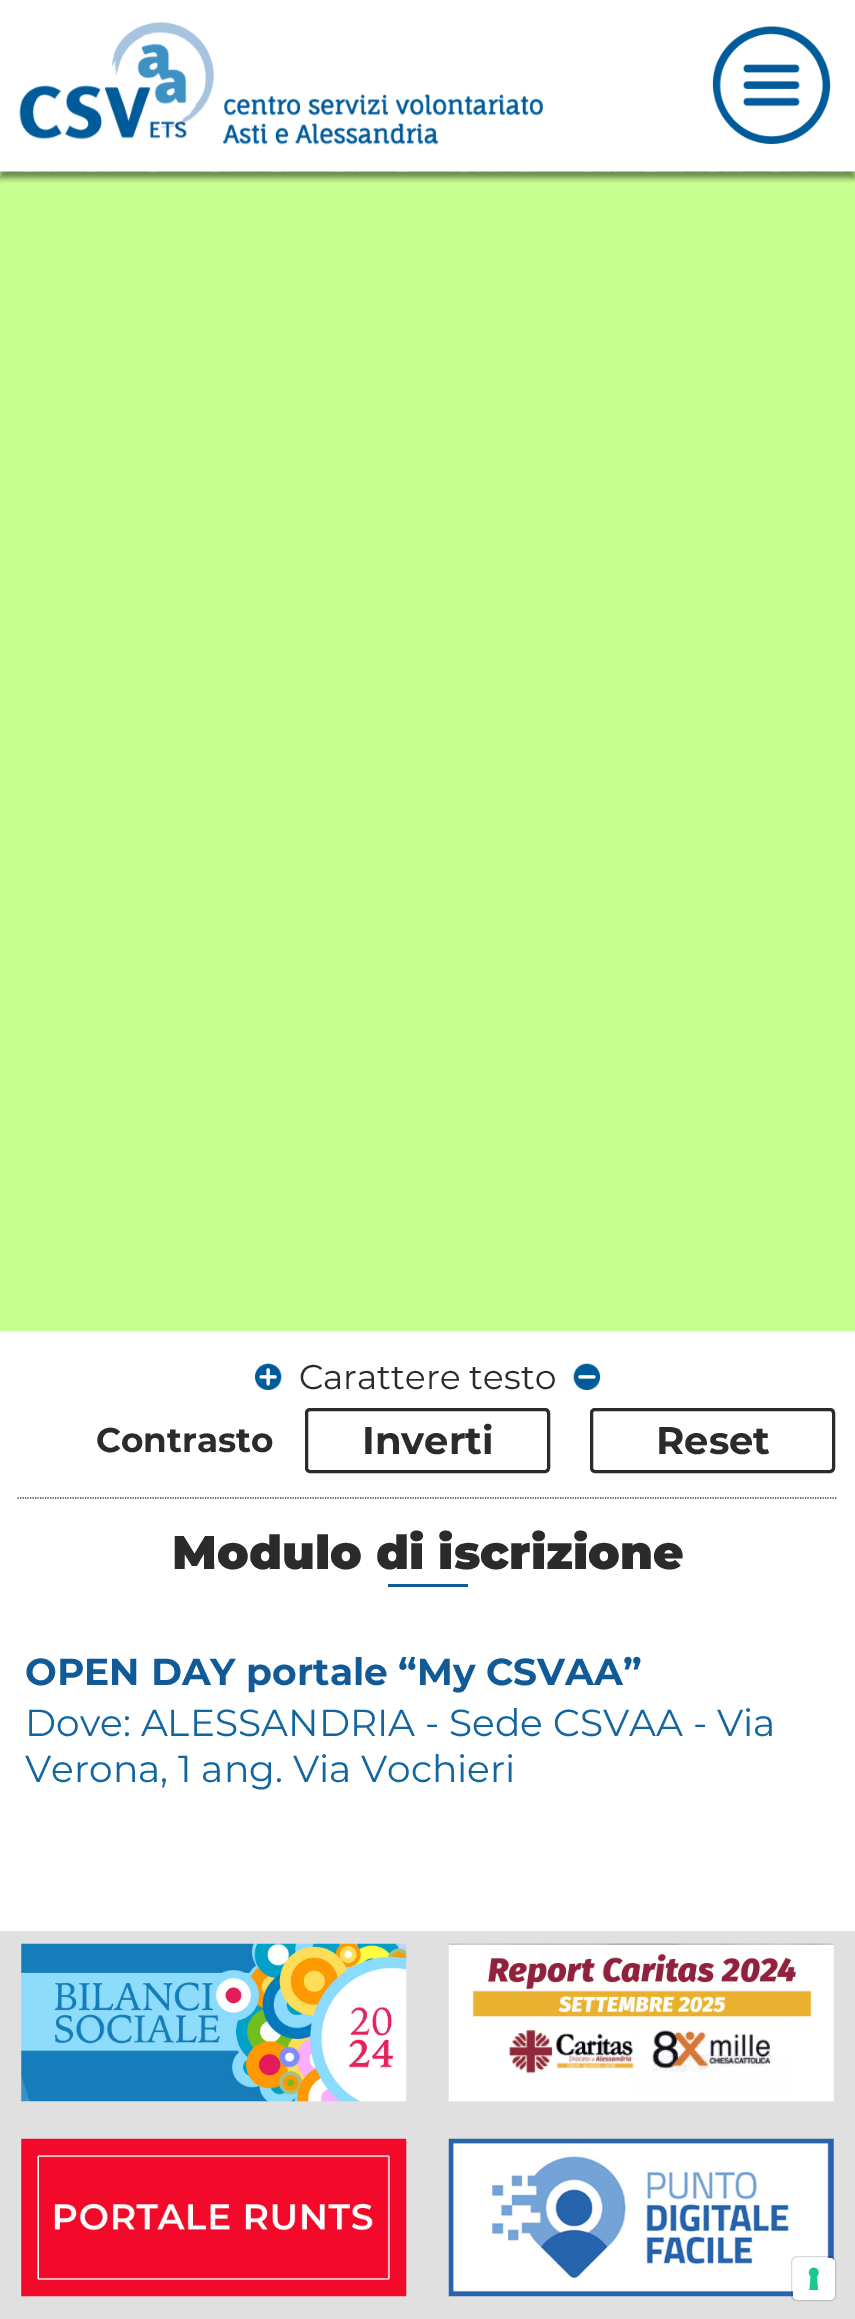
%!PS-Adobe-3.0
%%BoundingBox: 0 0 855 2319
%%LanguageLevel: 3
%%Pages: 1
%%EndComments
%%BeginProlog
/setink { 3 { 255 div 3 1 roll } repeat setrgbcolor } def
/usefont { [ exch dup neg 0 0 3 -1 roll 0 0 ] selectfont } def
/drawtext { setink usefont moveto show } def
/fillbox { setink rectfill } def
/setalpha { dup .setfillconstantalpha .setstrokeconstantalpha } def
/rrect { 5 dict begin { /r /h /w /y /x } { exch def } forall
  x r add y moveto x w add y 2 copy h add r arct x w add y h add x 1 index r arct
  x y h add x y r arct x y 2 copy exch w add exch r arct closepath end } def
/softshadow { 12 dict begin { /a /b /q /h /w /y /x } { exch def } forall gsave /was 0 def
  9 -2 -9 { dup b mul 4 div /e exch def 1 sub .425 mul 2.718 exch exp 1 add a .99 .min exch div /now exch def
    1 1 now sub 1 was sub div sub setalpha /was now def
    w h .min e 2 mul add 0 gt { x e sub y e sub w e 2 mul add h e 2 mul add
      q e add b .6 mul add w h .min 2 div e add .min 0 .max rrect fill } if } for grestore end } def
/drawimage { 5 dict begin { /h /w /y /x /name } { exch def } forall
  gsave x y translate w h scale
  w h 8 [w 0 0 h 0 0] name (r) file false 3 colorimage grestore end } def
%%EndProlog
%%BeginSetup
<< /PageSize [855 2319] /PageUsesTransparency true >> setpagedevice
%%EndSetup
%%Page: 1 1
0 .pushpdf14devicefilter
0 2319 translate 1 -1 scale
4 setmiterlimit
0 0 855 2319 255 255 255 fillbox
0 171 855 1160 199 255 145 fillbox
gsave
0 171 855 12 rectclip
0 0 0 setink
0 6 855 172 0 3 0.46 softshadow
grestore
(assets/img1.rgb) 1 171 853 1 drawimage
(assets/img2.rgb) 0 22 684 150 drawimage
(assets/img3.rgb) 683 26 172 146 drawimage
(assets/img4.rgb) 255 1363 27 27 drawimage
(Carattere testo) 299 1389 /Montserrat-Regular 34.25 43 43 43 drawtext
(assets/img5.rgb) 573 1363 27 27 drawimage
(Contrasto) 96 1452 /Montserrat-Bold 34.25 43 43 43 drawtext
3 setlinewidth
306.5 1409.5 242 62 3.5 rrect stroke
(Inverti) 362 1454 /Montserrat-Bold 38.5 43 43 43 drawtext
591.5 1409.5 242 62 3.5 rrect stroke
(Reset) 656 1454 /Montserrat-Bold 38.5 43 43 43 drawtext
1.2 setlinewidth
[1.25 1.25] 0 setdash
17.5 1498 moveto 837.5 1498 lineto stroke
(Modulo di iscrizione) 172 1569 /Montserrat-Black 47 43 43 43 drawtext
388 1584 80 3 16 90 151 fillbox
(OPEN DAY portale “My CSVAA”) 25 1685 /Montserrat-Bold 37.6 16 90 151 drawtext
(Dove: ALESSANDRIA - Sede CSVAA - Via) 25 1736 /Montserrat-Regular 37.6 19 101 159 drawtext
(Verona, 1 ang. Via Vochieri) 25 1782 /Montserrat-Regular 37.6 19 101 159 drawtext
0 1931 855 388 224 224 224 fillbox
(assets/img6.rgb) 21 1943 386 159 drawimage
(assets/img7.rgb) 448 1943 386 159 drawimage
(assets/img8.rgb) 21 2138 386 159 drawimage
(assets/img9.rgb) 448 2138 386 159 drawimage
0.15 setalpha
0 0 0 setink
1 setlinewidth
[] 0 setdash
791.5 2256.5 44 44 5.5 rrect stroke
1 setalpha
255 255 255 setink
793 2258 42 42 5 rrect fill
(assets/img10.rgb) 808 2267 11 23 drawimage
.poppdf14devicefilter showpage
%%EOF
